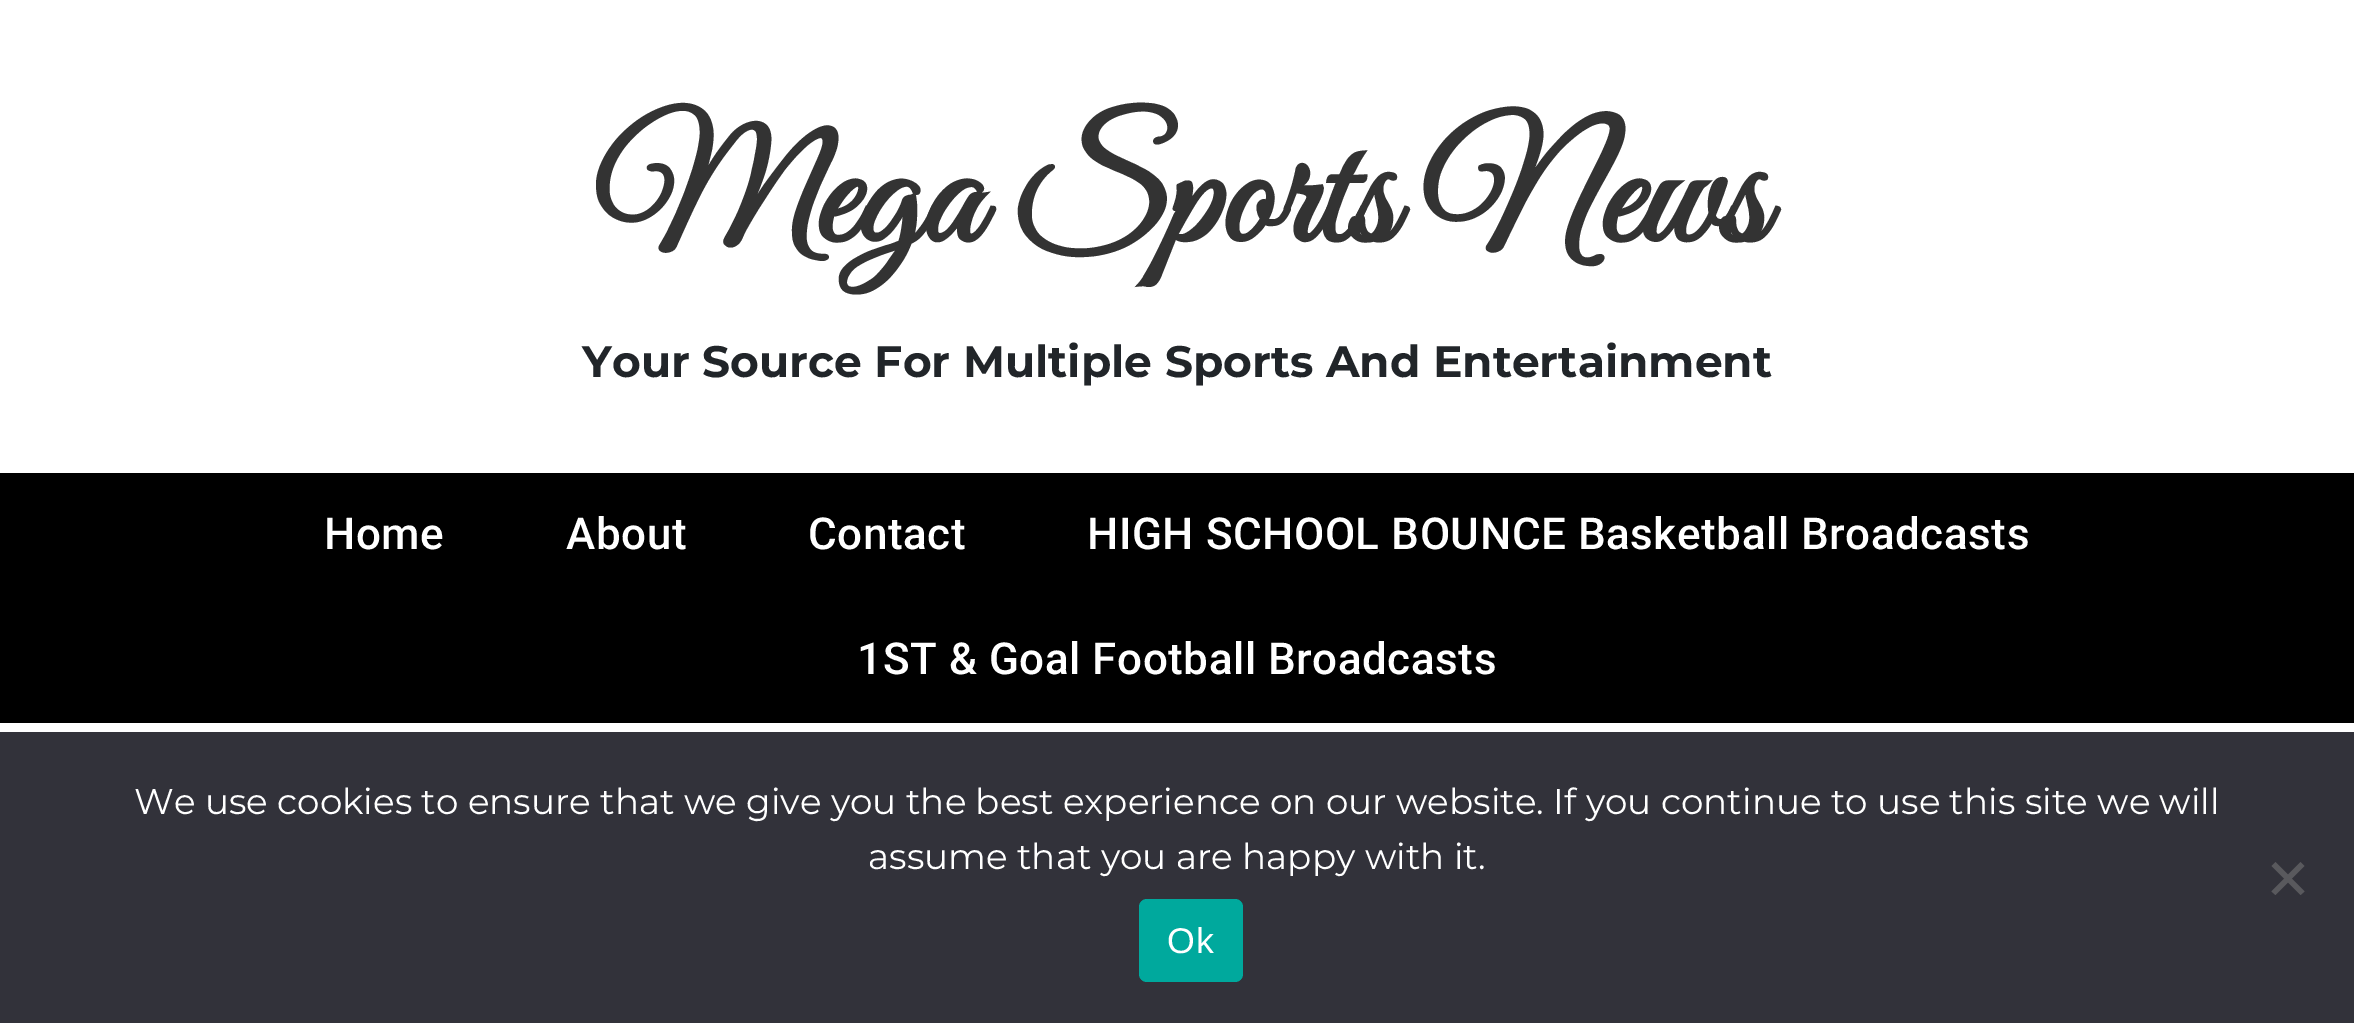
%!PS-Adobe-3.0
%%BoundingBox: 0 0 2354 1023
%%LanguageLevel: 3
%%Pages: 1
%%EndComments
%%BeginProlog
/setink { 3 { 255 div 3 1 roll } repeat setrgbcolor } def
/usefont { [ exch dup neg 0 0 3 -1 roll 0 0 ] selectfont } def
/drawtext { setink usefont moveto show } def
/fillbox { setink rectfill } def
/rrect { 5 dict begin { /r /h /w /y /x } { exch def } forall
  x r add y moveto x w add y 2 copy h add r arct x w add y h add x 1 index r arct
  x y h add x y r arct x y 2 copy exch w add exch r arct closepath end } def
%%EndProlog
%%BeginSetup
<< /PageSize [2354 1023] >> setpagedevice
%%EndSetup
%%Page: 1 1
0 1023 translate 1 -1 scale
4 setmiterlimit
0 0 2354 1023 255 255 255 fillbox
/GreatVibes-Bold 165 usefont
51 51 51 setink
593 242 moveto 2 0 32 (Mega Sports News) widthshow
(Your Source For Multiple Sports And Entertainment) 582 377 /Montserrat-Bold 44 33 37 41 drawtext
0 473 2354 250 0 0 0 fillbox
/Roboto-Medium 44 usefont
255 255 255 setink
324 549 moveto 0.55 0 (Home) ashow
566 549 moveto 0.55 0 (About) ashow
808 549 moveto 0.55 0 (Contact) ashow
1087 549 moveto 0.55 0 (HIGH SCHOOL BOUNCE Basketball Broadcasts) ashow
857 674 moveto 0.55 0 (1ST & Goal Football Broadcasts) ashow
0 732 2354 291 50 50 58 fillbox
(We use cookies to ensure that we give you the best experience on our website. If you continue to use this site we will) 134 814 /Montserrat-Regular 35.75 255 255 255 drawtext
(assume that you are happy with it.) 868 869 /Montserrat-Regular 35.75 255 255 255 drawtext
89 89 93 setink
2300.5 862 moveto 2304.5 866 lineto 2275.5 895 lineto 2271.5 891.5 lineto closepath fill
2271.5 866 moveto 2275.5 862 lineto 2304.5 891.5 lineto 2300.5 895 lineto closepath fill
0 169 157 setink
1139 899 104 83 8 rrect fill
/LiberationSans-Regular 35.75 usefont
255 255 255 setink
1167 953 moveto 1 0 (Ok) ashow
showpage
%%EOF
